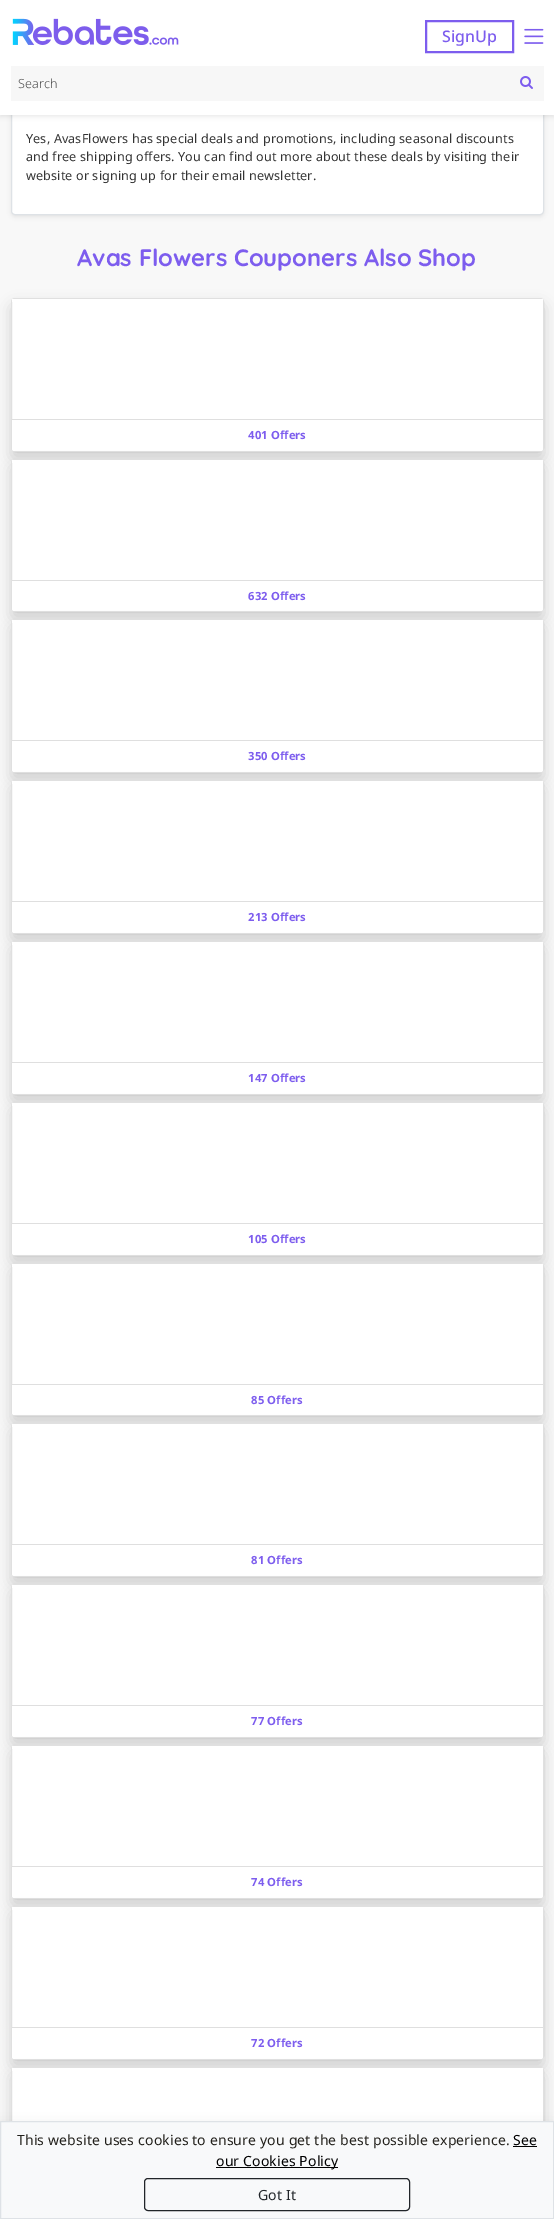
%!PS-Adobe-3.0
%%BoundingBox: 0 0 554 2219
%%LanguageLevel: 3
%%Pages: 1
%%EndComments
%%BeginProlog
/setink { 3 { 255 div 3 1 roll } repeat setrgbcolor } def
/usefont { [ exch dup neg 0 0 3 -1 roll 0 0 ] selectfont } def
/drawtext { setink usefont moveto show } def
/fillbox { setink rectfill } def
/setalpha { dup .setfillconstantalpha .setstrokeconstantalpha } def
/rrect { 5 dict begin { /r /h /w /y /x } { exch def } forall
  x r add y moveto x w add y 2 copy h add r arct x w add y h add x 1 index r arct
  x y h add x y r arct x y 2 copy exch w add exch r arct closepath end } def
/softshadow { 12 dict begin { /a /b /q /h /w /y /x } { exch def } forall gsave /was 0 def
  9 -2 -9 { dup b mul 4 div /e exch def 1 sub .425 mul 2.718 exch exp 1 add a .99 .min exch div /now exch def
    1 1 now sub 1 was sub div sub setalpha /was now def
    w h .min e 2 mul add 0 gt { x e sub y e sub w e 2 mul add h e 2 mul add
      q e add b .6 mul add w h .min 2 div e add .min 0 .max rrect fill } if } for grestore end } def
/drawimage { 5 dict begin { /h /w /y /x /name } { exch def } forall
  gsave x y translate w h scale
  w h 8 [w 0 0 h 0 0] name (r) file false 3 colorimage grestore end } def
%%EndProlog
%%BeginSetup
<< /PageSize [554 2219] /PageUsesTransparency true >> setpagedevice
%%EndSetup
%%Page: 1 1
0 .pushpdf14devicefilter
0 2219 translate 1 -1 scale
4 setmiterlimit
0 0 554 2219 248 248 248 fillbox
0 0 0 setink
11 -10 533 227 4 2 0.07 softshadow
255 255 255 setink
11.5 -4.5 532 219 3.5 rrect gsave fill grestore
222 226 230 setink
stroke
0 0 0 setink
0 2 554 115 0 2 0.07 softshadow
0 0 554 115 255 255 255 fillbox
(assets/img1.rgb) 12 18 167 27 drawimage
125 93 238 setink
2 setlinewidth
426 21 87 31 rectstroke
(SignUp) 442 42 /NotoSans-Medium 16 125 93 238 drawtext
(assets/img2.rgb) 524 28 20 16 drawimage
11 66 533 35 247 247 247 fillbox
/NotoSans-Light 12.6 usefont
77 77 77 setink
18 88 moveto 0.13 0 (Search) ashow
(assets/img3.rgb) 520 76 13 13 drawimage
/NotoSans-Regular 12.6 usefont
51 51 51 setink
26 143 moveto 0.13 0 (Yes, AvasFlowers has special deals and promotions, including seasonal discounts) ashow
26 161 moveto 0.13 0 (and free shipping offers. You can find out more about these deals by visiting their) ashow
26 180 moveto 0.13 0 (website or signing up for their email newsletter.) ashow
(Avas Flowers Couponers Also Shop) 77 266 /Quicksand-Bold 23.75 125 93 238 drawtext
0 0 0 setink
11 305 533 154 4 7 0.15 softshadow
255 255 255 setink
11 298 533 154 4 rrect fill
0.12 setalpha
0 0 0 setink
1 setlinewidth
11.5 298.5 532 153 3.5 rrect stroke
1 setalpha
12 299 531 3 255 255 255 fillbox
12 419 moveto 543 419 lineto 543 448.5 lineto 543 450 542 451 540.5 451 curveto 14.5 451 lineto 13 451 12 450 12 448.5 curveto closepath fill
12 419 531 1 223 223 223 fillbox
/NotoSans-Bold 11.25 usefont
125 93 238 setink
248 439 moveto 0.1 0 (401 Offers) ashow
0 0 0 setink
11 466 533 153 4 7 0.15 softshadow
255 255 255 setink
11 459 533 153 4 rrect fill
0.12 setalpha
0 0 0 setink
11.5 459.5 532 152 3.5 rrect stroke
1 setalpha
12 460 531 3 255 255 255 fillbox
12 580 moveto 543 580 lineto 543 608.5 lineto 543 610 542 611 540.5 611 curveto 14.5 611 lineto 13 611 12 610 12 608.5 curveto closepath fill
12 580 531 1 223 223 223 fillbox
125 93 238 setink
248 600 moveto 0.1 0 (632 Offers) ashow
0 0 0 setink
11 626 533 154 4 7 0.15 softshadow
255 255 255 setink
11 619 533 154 4 rrect fill
0.12 setalpha
0 0 0 setink
11.5 619.5 532 153 3.5 rrect stroke
1 setalpha
12 620 531 3 255 255 255 fillbox
12 740 moveto 543 740 lineto 543 769.5 lineto 543 771 542 772 540.5 772 curveto 14.5 772 lineto 13 772 12 771 12 769.5 curveto closepath fill
12 740 531 1 223 223 223 fillbox
125 93 238 setink
248 760 moveto 0.1 0 (350 Offers) ashow
0 0 0 setink
11 787 533 154 4 7 0.15 softshadow
255 255 255 setink
11 780 533 154 4 rrect fill
0.12 setalpha
0 0 0 setink
11.5 780.5 532 153 3.5 rrect stroke
1 setalpha
12 781 531 3 255 255 255 fillbox
12 901 moveto 543 901 lineto 543 930.5 lineto 543 932 542 933 540.5 933 curveto 14.5 933 lineto 13 933 12 932 12 930.5 curveto closepath fill
12 901 531 1 223 223 223 fillbox
125 93 238 setink
248 921 moveto 0.1 0 (213 Offers) ashow
0 0 0 setink
11 948 533 154 4 7 0.15 softshadow
255 255 255 setink
11 941 533 154 4 rrect fill
0.12 setalpha
0 0 0 setink
11.5 941.5 532 153 3.5 rrect stroke
1 setalpha
12 942 531 3 255 255 255 fillbox
12 1062 moveto 543 1062 lineto 543 1091.5 lineto 543 1093 542 1094 540.5 1094 curveto 14.5 1094 lineto 13 1094 12 1093 12 1091.5 curveto closepath fill
12 1062 531 1 223 223 223 fillbox
125 93 238 setink
248 1082 moveto 0.1 0 (147 Offers) ashow
0 0 0 setink
11 1109 533 154 4 7 0.15 softshadow
255 255 255 setink
11 1102 533 154 4 rrect fill
0.12 setalpha
0 0 0 setink
11.5 1102.5 532 153 3.5 rrect stroke
1 setalpha
12 1103 531 3 255 255 255 fillbox
12 1223 moveto 543 1223 lineto 543 1252.5 lineto 543 1254 542 1255 540.5 1255 curveto 14.5 1255 lineto 13 1255 12 1254 12 1252.5 curveto closepath fill
12 1223 531 1 223 223 223 fillbox
125 93 238 setink
248 1243 moveto 0.1 0 (105 Offers) ashow
0 0 0 setink
11 1270 533 153 4 7 0.15 softshadow
255 255 255 setink
11 1263 533 153 4 rrect fill
0.12 setalpha
0 0 0 setink
11.5 1263.5 532 152 3.5 rrect stroke
1 setalpha
12 1264 531 3 255 255 255 fillbox
12 1384 moveto 543 1384 lineto 543 1412.5 lineto 543 1414 542 1415 540.5 1415 curveto 14.5 1415 lineto 13 1415 12 1414 12 1412.5 curveto closepath fill
12 1384 531 1 223 223 223 fillbox
125 93 238 setink
251 1404 moveto 0.1 0 (85 Offers) ashow
0 0 0 setink
11 1430 533 154 4 7 0.15 softshadow
255 255 255 setink
11 1423 533 154 4 rrect fill
0.12 setalpha
0 0 0 setink
11.5 1423.5 532 153 3.5 rrect stroke
1 setalpha
12 1424 531 3 255 255 255 fillbox
12 1544 moveto 543 1544 lineto 543 1573.5 lineto 543 1575 542 1576 540.5 1576 curveto 14.5 1576 lineto 13 1576 12 1575 12 1573.5 curveto closepath fill
12 1544 531 1 223 223 223 fillbox
125 93 238 setink
251 1564 moveto 0.1 0 (81 Offers) ashow
0 0 0 setink
11 1591 533 154 4 7 0.15 softshadow
255 255 255 setink
11 1584 533 154 4 rrect fill
0.12 setalpha
0 0 0 setink
11.5 1584.5 532 153 3.5 rrect stroke
1 setalpha
12 1585 531 3 255 255 255 fillbox
12 1705 moveto 543 1705 lineto 543 1734.5 lineto 543 1736 542 1737 540.5 1737 curveto 14.5 1737 lineto 13 1737 12 1736 12 1734.5 curveto closepath fill
12 1705 531 1 223 223 223 fillbox
125 93 238 setink
251 1725 moveto 0.1 0 (77 Offers) ashow
0 0 0 setink
11 1752 533 154 4 7 0.15 softshadow
255 255 255 setink
11 1745 533 154 4 rrect fill
0.12 setalpha
0 0 0 setink
11.5 1745.5 532 153 3.5 rrect stroke
1 setalpha
12 1746 531 3 255 255 255 fillbox
12 1866 moveto 543 1866 lineto 543 1895.5 lineto 543 1897 542 1898 540.5 1898 curveto 14.5 1898 lineto 13 1898 12 1897 12 1895.5 curveto closepath fill
12 1866 531 1 223 223 223 fillbox
125 93 238 setink
251 1886 moveto 0.1 0 (74 Offers) ashow
0 0 0 setink
11 1913 533 154 4 7 0.15 softshadow
255 255 255 setink
11 1906 533 154 4 rrect fill
0.12 setalpha
0 0 0 setink
11.5 1906.5 532 153 3.5 rrect stroke
1 setalpha
12 1907 531 3 255 255 255 fillbox
12 2027 moveto 543 2027 lineto 543 2056.5 lineto 543 2058 542 2059 540.5 2059 curveto 14.5 2059 lineto 13 2059 12 2058 12 2056.5 curveto closepath fill
12 2027 531 1 223 223 223 fillbox
125 93 238 setink
251 2047 moveto 0.1 0 (72 Offers) ashow
0 0 0 setink
11 2074 533 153 4 7 0.15 softshadow
255 255 255 setink
11 2067 533 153 4 rrect fill
0.12 setalpha
0 0 0 setink
11.5 2067.5 532 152 3.5 rrect stroke
1 setalpha
12 2068 531 3 255 255 255 fillbox
0 0 0 setink
0 2128 554 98 0 7 0.15 softshadow
248 249 250 setink
0.5 2121.5 moveto 553.5 2121.5 lineto 553.5 2218.5 lineto 0.5 2218.5 lineto closepath gsave fill grestore
222 226 230 setink
stroke
/NotoSans-Regular 14 usefont
34 32 27 setink
17 2145 moveto 0.15 0 (This website uses cookies to ensure you get the best possible experience.) ashow
0 0 0 setink
513 2145 moveto 0.15 0 (See) ashow
513 2146 24 1 0 0 0 fillbox
216 2167 122 1 0 0 0 fillbox
216 2166 moveto 0.15 0 (our Cookies Policy) ashow
33 37 41 setink
144.5 2178.5 265 32 3.5 rrect stroke
258 2200 moveto 0.15 0 (Got It) ashow
.poppdf14devicefilter showpage
%%EOF
